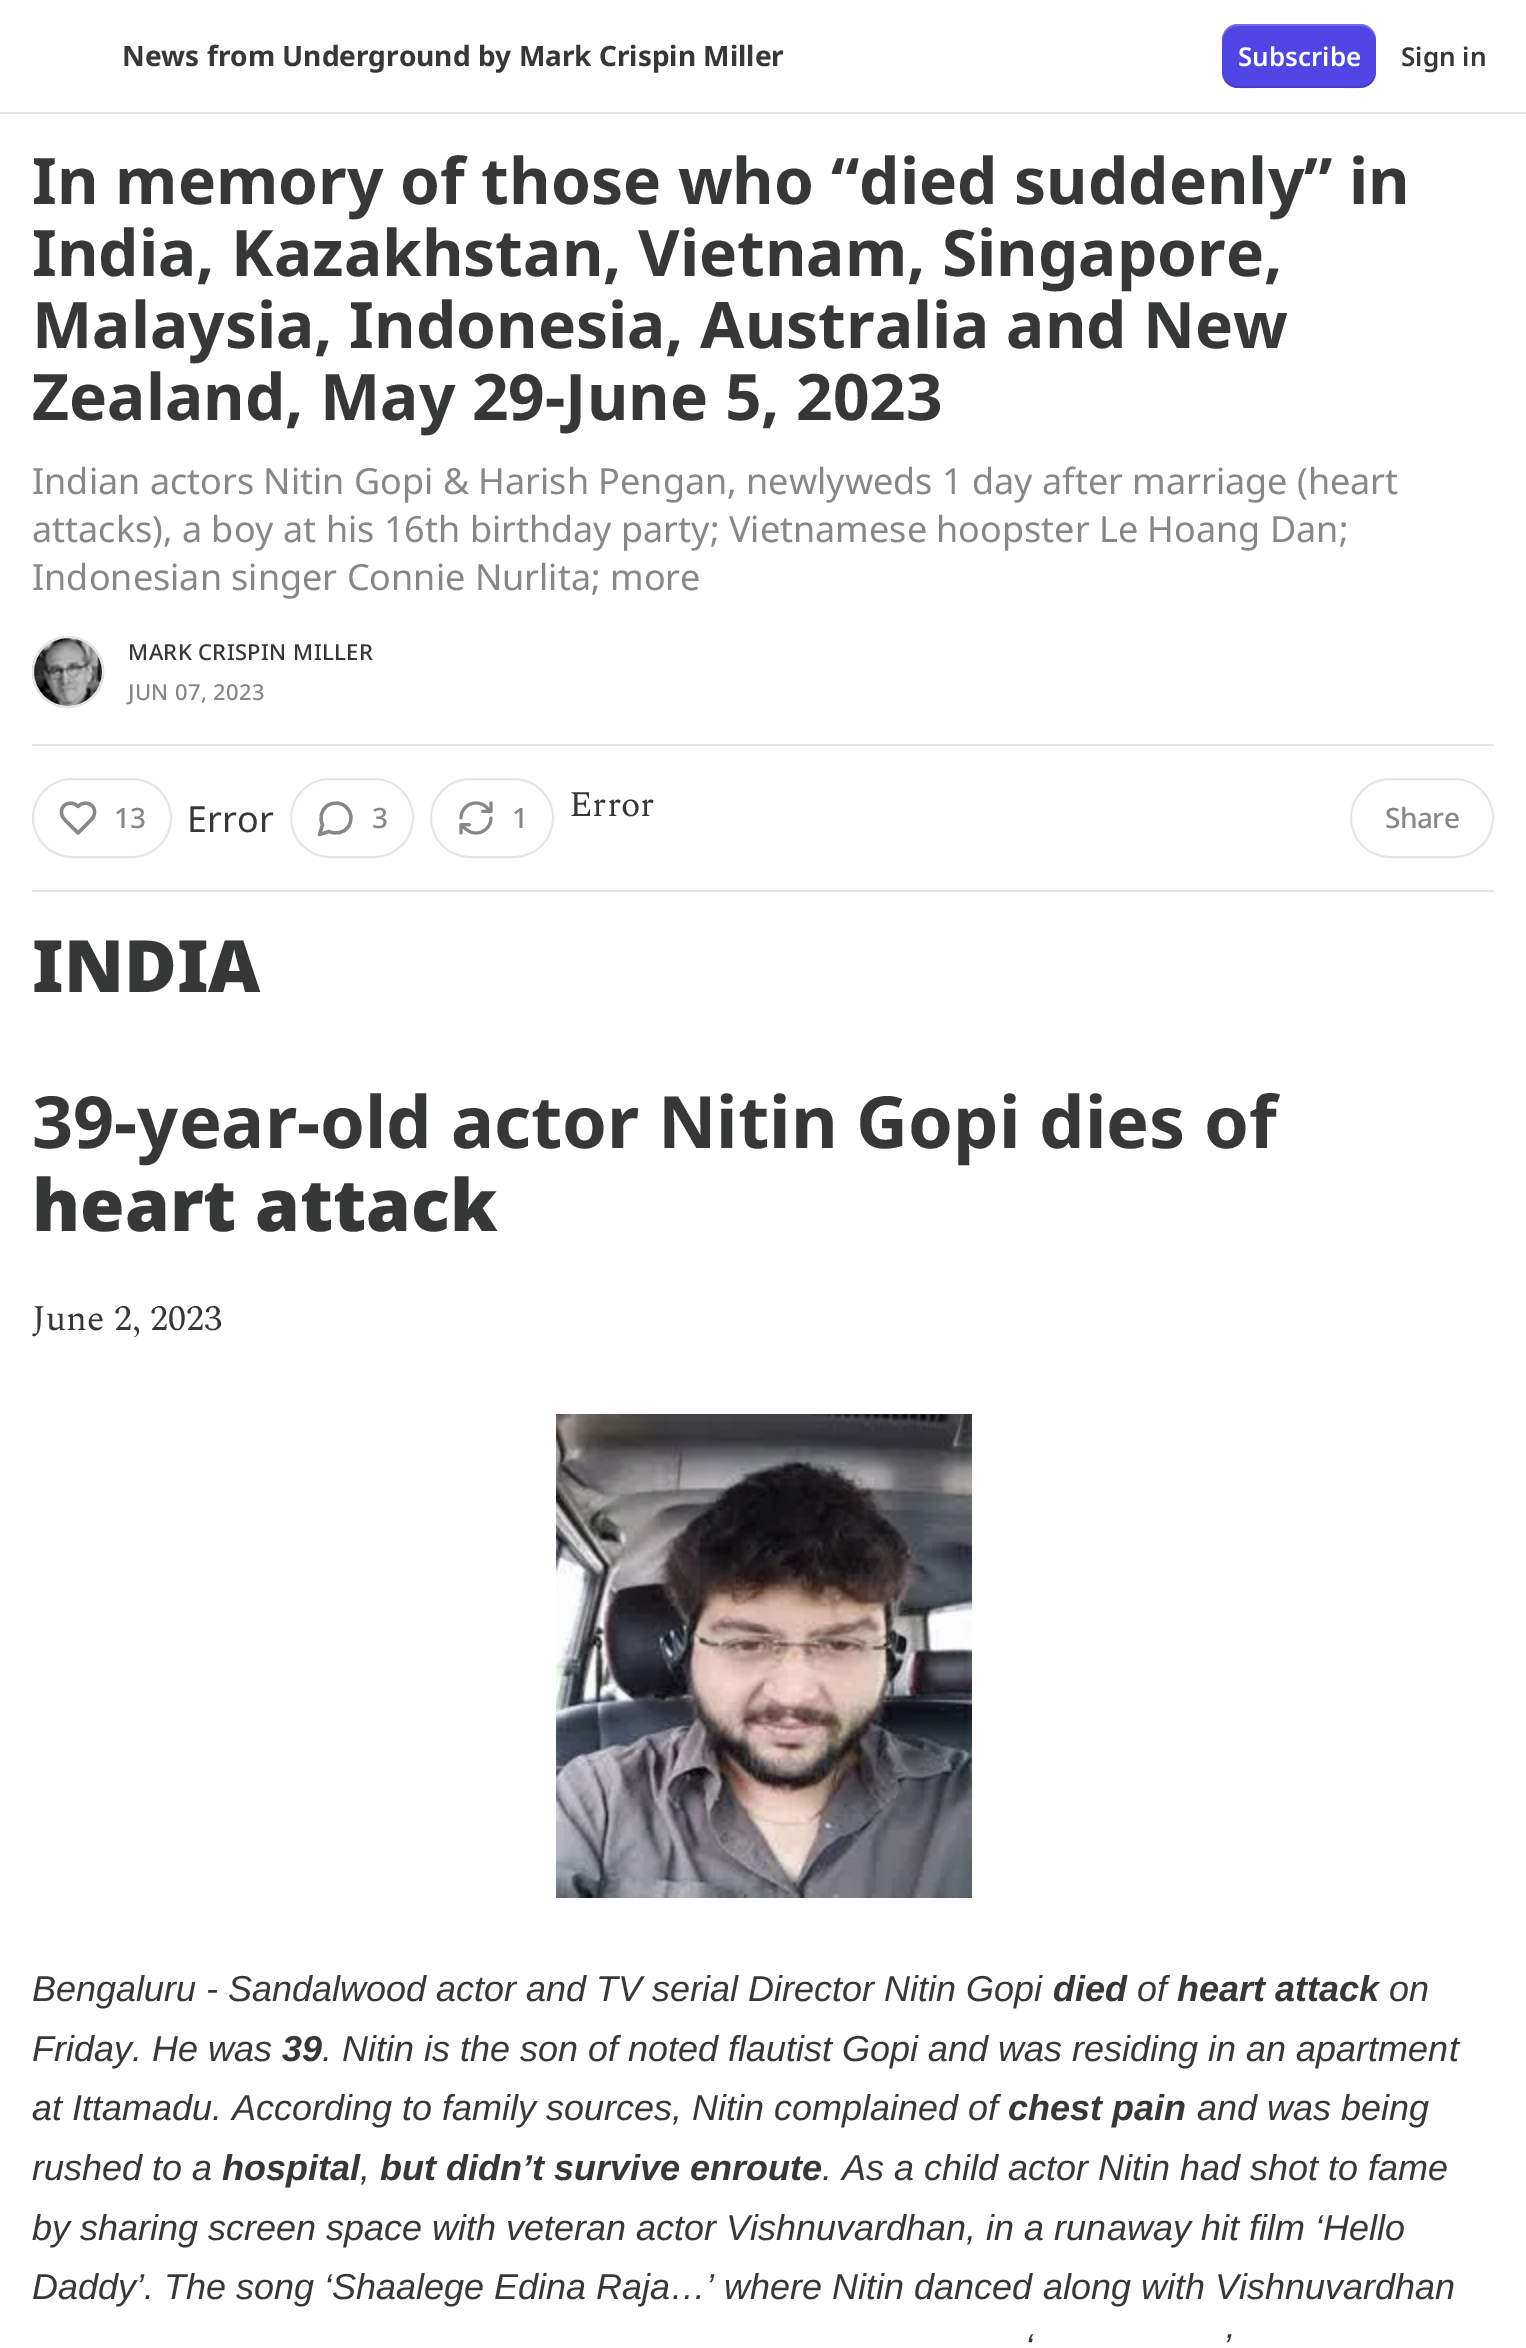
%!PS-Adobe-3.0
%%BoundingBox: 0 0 1526 2348
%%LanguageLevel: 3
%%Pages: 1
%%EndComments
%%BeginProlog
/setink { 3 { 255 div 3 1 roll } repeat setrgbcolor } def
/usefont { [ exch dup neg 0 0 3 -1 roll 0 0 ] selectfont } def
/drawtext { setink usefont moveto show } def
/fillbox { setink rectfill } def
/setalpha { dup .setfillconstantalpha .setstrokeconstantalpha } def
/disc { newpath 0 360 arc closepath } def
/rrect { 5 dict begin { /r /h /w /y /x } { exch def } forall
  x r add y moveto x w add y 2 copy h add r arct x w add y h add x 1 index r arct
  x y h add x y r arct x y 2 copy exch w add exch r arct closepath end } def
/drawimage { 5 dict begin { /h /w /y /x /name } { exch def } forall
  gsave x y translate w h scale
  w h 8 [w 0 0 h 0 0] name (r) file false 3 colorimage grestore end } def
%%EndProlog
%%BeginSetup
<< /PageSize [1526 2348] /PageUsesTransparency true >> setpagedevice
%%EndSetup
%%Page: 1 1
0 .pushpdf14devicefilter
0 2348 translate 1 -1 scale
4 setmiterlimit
0 0 1526 2348 255 255 255 fillbox
0 112 1526 2 230 230 230 fillbox
(News from Underground by Mark Crispin Miller) 122 66 /NotoSans-Bold 28 54 55 55 drawtext
79 70 229 setink
1222 24 154 64 16 rrect fill
0.1 setalpha
0 0 0 setink
1222 70 moveto 1222 92 1242 88 1258 88 curveto 1340 88 lineto 1356 88 1376 92 1376 70 curveto 1376 79 1369 86 1360 86 curveto 1238 86 lineto 1229 86 1222 79 1222 70 curveto closepath fill
0.2 setalpha
255 255 255 setink
1238 26 moveto 1360 26 lineto 1369 26 1376 33 1376 42 curveto 1376 20 1356 24 1340 24 curveto 1258 24 lineto 1242 24 1222 20 1222 42 curveto 1222 33 1229 26 1238 26 curveto closepath fill
1 setalpha
(Subscribe) 1238 66 /NotoSans-SemiBold 26 255 255 255 drawtext
(Sign in) 1401 66 /NotoSans-SemiBold 26 54 55 55 drawtext
(In memory of those who “died suddenly” in) 32 204 /NotoSans-Bold 64 54 55 55 drawtext
(India, Kazakhstan, Vietnam, Singapore,) 32 276 /NotoSans-Bold 64 54 55 55 drawtext
(Malaysia, Indonesia, Australia and New) 32 348 /NotoSans-Bold 64 54 55 55 drawtext
(Zealand, May 29-June 5, 2023) 32 420 /NotoSans-Bold 64 54 55 55 drawtext
(Indian actors Nitin Gopi & Harish Pengan, newlyweds 1 day after marriage \(heart) 32 494 /NotoSans-Regular 36 134 135 135 drawtext
(attacks\), a boy at his 16th birthday party; Vietnamese hoopster Le Hoang Dan;) 32 542 /NotoSans-Regular 36 134 135 135 drawtext
(Indonesian singer Connie Nurlita; more) 32 590 /NotoSans-Regular 36 134 135 135 drawtext
230 230 230 setink
2 setlinewidth
68 672 35 disc stroke
(assets/img1.rgb) 32 636 72 72 drawimage
68 672 35 disc stroke
/NotoSans-Medium 22 usefont
54 55 55 setink
128 660 moveto 0.4 0 (MARK CRISPIN MILLER) ashow
134 135 135 setink
128 700 moveto 0.4 0 (JUN 07, 2023) ashow
32 744 1462 2 230 230 230 fillbox
32 890 1462 2 230 230 230 fillbox
33 779 138 78 39 rrect stroke
134 135 135 setink
3.3 setlinewidth
1 setlinecap
1 setlinejoin
89.5 821.5 moveto 91.5 819.5 93.5 817.5 94 815 curveto 97.5 805 85 799 78 806.5 curveto 71 799 58.5 805 62 815 curveto 63 819 67 822 70 825 curveto 78 833 lineto closepath stroke
/NotoSans-Medium 28 usefont
114 828 moveto -0.5 0 (13) ashow
(Error) 187 832 /NotoSans-Regular 36 54 55 55 drawtext
230 230 230 setink
2 setlinewidth
0 setlinecap
0 setlinejoin
291 779 122 78 39 rrect stroke
134 135 135 setink
3.3 setlinewidth
1 setlinecap
1 setlinejoin
329 831.5 moveto 335.5 834.5 344 833 348 827 curveto 352.5 821 352 812.5 346.5 807.5 curveto 341.5 802 333 801.5 327 806 curveto 321 810 319.5 818.5 322.5 825 curveto 319.5 834.5 lineto closepath stroke
/NotoSans-Medium 28 usefont
372 828 moveto -0.5 0 (3) ashow
230 230 230 setink
2 setlinewidth
0 setlinecap
0 setlinejoin
431 779 122 78 39 rrect stroke
(assets/img2.rgb) 459 801 34 34 drawimage
134 135 135 setink
512 828 moveto -0.5 0 (1) ashow
(Error) 569 816 /Spectral-Regular 36 54 55 55 drawtext
230 230 230 setink
1351 779 142 78 39 rrect stroke
/NotoSans-Medium 28 usefont
134 135 135 setink
1385 828 moveto -0.5 0 (Share) ashow
(INDIA) 32 992 /NotoSans-Black 72 54 55 55 drawtext
(39-year-old actor Nitin Gopi dies of) 32 1148 /NotoSans-Bold 72 54 55 55 drawtext
(heart attack) 32 1231 /NotoSans-Black 72 54 55 55 drawtext
(June 2, 2023) 32 1330 /Spectral-Regular 36 54 55 55 drawtext
(assets/img3.rgb) 556 1414 416 484 drawimage
(Bengaluru - Sandalwood actor and TV serial Director Nitin Gopi) 32 2001 /LiberationSans-Italic 36 54 55 55 drawtext
(died) 1053 2001 /LiberationSans-BoldItalic 36 54 55 55 drawtext
(of) 1137 2001 /LiberationSans-Italic 36 54 55 55 drawtext
(heart attack) 1177 2001 /LiberationSans-BoldItalic 36 54 55 55 drawtext
(on) 1389 2001 /LiberationSans-Italic 36 54 55 55 drawtext
(Friday. He was) 32 2061 /LiberationSans-Italic 36 54 55 55 drawtext
(39) 282 2061 /LiberationSans-BoldItalic 36 54 55 55 drawtext
(. Nitin is the son of noted flautist Gopi and was residing in an apartment) 322 2061 /LiberationSans-Italic 36 54 55 55 drawtext
(at Ittamadu. According to family sources, Nitin complained of) 32 2120 /LiberationSans-Italic 36 54 55 55 drawtext
(chest pain) 1008 2120 /LiberationSans-BoldItalic 36 54 55 55 drawtext
(and was being) 1197 2120 /LiberationSans-Italic 36 54 55 55 drawtext
(rushed to a) 32 2180 /LiberationSans-Italic 36 54 55 55 drawtext
(hospital) 222 2180 /LiberationSans-BoldItalic 36 54 55 55 drawtext
(,) 360 2180 /LiberationSans-Italic 36 54 55 55 drawtext
(but didn’t survive enroute) 380 2180 /LiberationSans-BoldItalic 36 54 55 55 drawtext
(. As a child actor Nitin had shot to fame) 822 2180 /LiberationSans-Italic 36 54 55 55 drawtext
(by sharing screen space with veteran actor Vishnuvardhan, in a runaway hit film ‘Hello) 32 2240 /LiberationSans-Italic 36 54 55 55 drawtext
(Daddy’. The song ‘Shaalege Edina Raja…’ where Nitin danced along with Vishnuvardhan) 32 2299 /LiberationSans-Italic 36 54 55 55 drawtext
(‘) 1025 2359 /LiberationSans-Italic 36 54 55 55 drawtext
(’) 1223 2359 /LiberationSans-Italic 36 54 55 55 drawtext
.poppdf14devicefilter showpage
%%EOF
